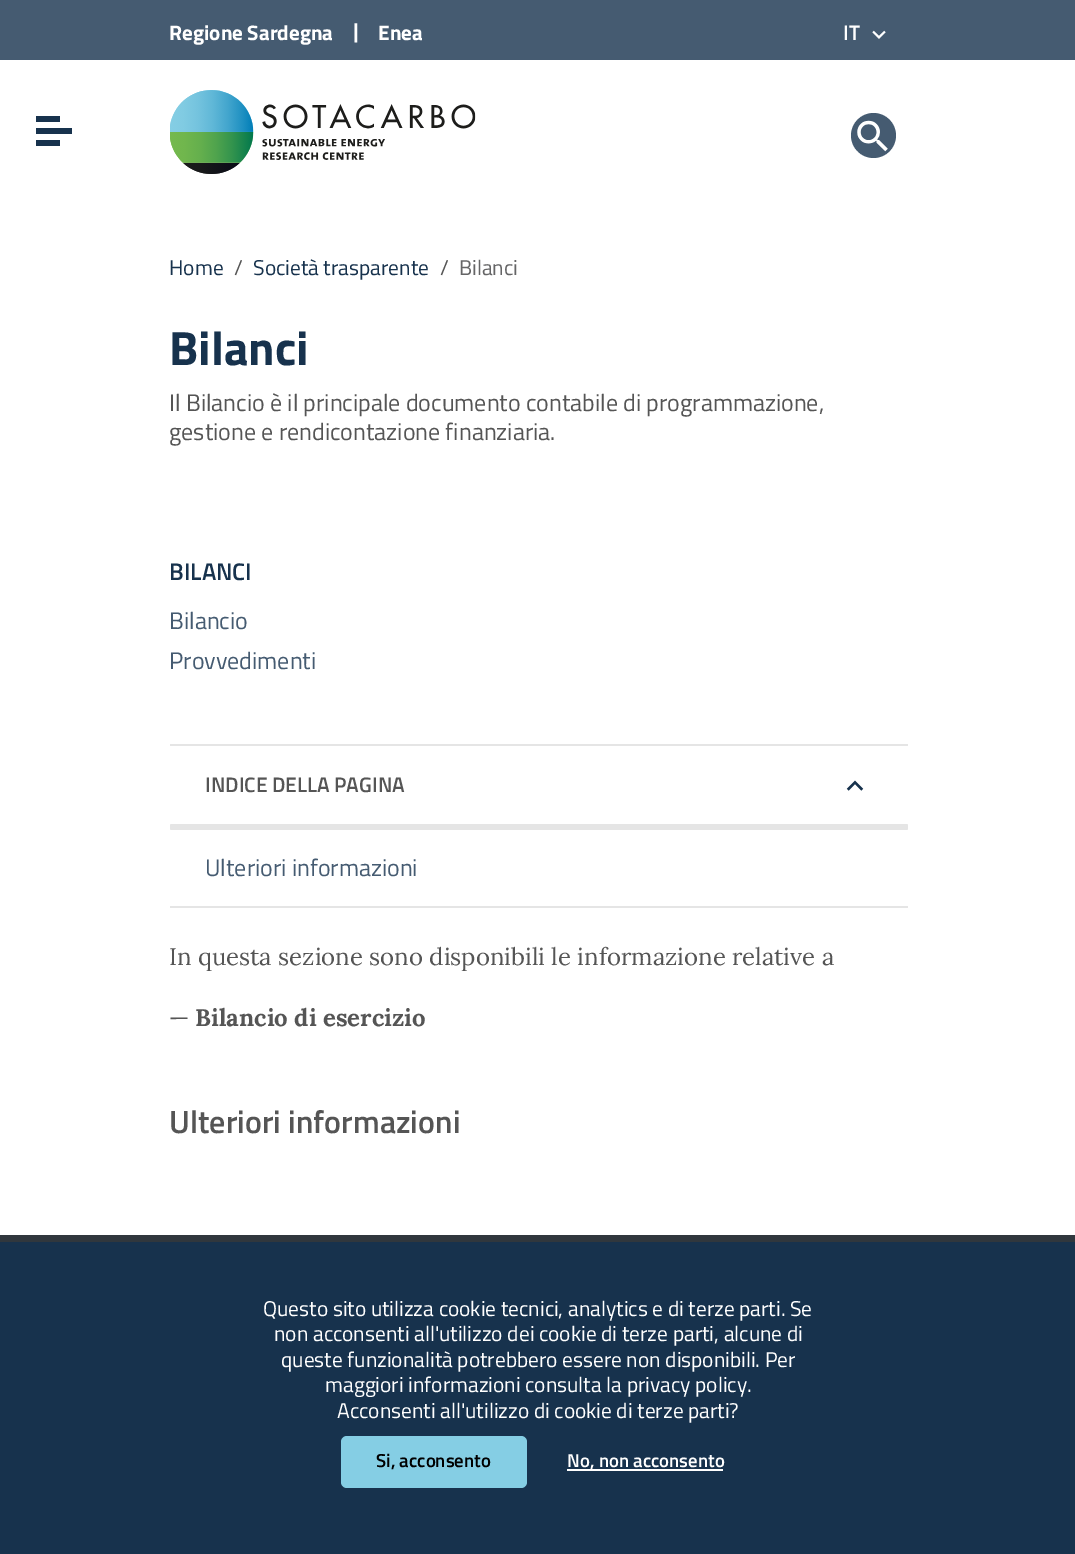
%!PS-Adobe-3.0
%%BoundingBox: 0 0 1075 1554
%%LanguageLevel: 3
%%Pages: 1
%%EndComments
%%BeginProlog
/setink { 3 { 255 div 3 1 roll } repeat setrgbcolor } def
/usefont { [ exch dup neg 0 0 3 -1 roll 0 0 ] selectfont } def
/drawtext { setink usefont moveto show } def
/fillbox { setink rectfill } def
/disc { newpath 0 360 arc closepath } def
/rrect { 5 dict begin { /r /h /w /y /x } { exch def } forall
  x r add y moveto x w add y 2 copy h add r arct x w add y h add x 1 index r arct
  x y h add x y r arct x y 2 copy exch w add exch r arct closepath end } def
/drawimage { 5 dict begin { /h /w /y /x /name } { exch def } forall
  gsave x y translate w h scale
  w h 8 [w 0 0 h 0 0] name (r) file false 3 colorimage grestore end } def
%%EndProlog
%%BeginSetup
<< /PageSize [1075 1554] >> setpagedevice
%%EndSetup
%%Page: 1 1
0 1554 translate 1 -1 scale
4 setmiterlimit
0 0 1075 1554 255 255 255 fillbox
0 0 1075 60 69 91 113 fillbox
(Regione Sardegna) 169 40 /TitilliumWeb-Bold 21 255 255 255 drawtext
(|) 353 38 /TitilliumWeb-Bold 21 255 255 255 drawtext
(Enea) 378 40 /TitilliumWeb-Bold 21 255 255 255 drawtext
(IT) 843 40 /TitilliumWeb-SemiBold 21 255 255 255 drawtext
(assets/img1.rgb) 872 30 14 9 drawimage
36 116 24 6 23 50 77 fillbox
36 128 36 6 23 50 77 fillbox
36 140 24 6 23 50 77 fillbox
(assets/img2.rgb) 170 90 306 84 drawimage
69 91 113 setink
873.5 135.5 22.5 disc fill
(assets/img3.rgb) 857 120 31 32 drawimage
(Home) 169 275 /TitilliumWeb-Regular 21.35 23 50 77 drawtext
(/) 234 275 /TitilliumWeb-Regular 21.35 85 85 85 drawtext
(Società trasparente) 253 275 /TitilliumWeb-Regular 21.35 23 50 77 drawtext
(/) 440 275 /TitilliumWeb-Regular 21.35 85 85 85 drawtext
(Bilanci) 459 275 /TitilliumWeb-Regular 21.35 101 101 102 drawtext
(Bilanci) 169 365 /TitilliumWeb-Bold 48 23 50 77 drawtext
(Il Bilancio è il principale documento contabile di programmazione,) 169 411 /TitilliumWeb-Regular 24 85 85 85 drawtext
(gestione e rendicontazione finanziaria.) 169 440 /TitilliumWeb-Regular 24 85 85 85 drawtext
(BILANCI) 169 580 /TitilliumWeb-SemiBold 24 23 50 77 drawtext
(Bilancio) 169 629 /TitilliumWeb-Regular 24 69 91 113 drawtext
(Provvedimenti) 169 669 /TitilliumWeb-Regular 24 69 91 113 drawtext
170 744 738 2 229 229 229 fillbox
(INDICE DELLA PAGINA) 205 792 /TitilliumWeb-SemiBold 21 85 85 85 drawtext
(assets/img4.rgb) 846 780 18 11 drawimage
229 229 229 setink
170 824 738 6 1.5 rrect fill
170 906 738 2 229 229 229 fillbox
(Ulteriori informazioni) 205 876 /TitilliumWeb-Regular 24 69 91 113 drawtext
(In questa sezione sono disponibili le informazione relative a) 169 965 /Lora-Regular 24 85 85 85 drawtext
(—) 169 1026 /Lora-Regular 24 85 85 85 drawtext
(Bilancio di esercizio) 195 1026 /Lora-Bold 24 85 85 85 drawtext
(Ulteriori informazioni) 169 1133 /TitilliumWeb-SemiBold 32 85 85 85 drawtext
0 1235 1075 7 48 55 61 fillbox
0 1242 1075 312 23 50 77 fillbox
(Questo sito utilizza cookie tecnici, analytics e di terze parti. Se) 263 1316 /TitilliumWeb-Regular 21.35 255 255 255 drawtext
(non acconsenti all'utilizzo dei cookie di terze parti, alcune di) 274 1341 /TitilliumWeb-Regular 21.35 255 255 255 drawtext
(queste funzionalità potrebbero essere non disponibili. Per) 281 1367 /TitilliumWeb-Regular 21.35 255 255 255 drawtext
(maggiori informazioni consulta la privacy policy.) 325 1392 /TitilliumWeb-Regular 21.35 255 255 255 drawtext
(Acconsenti all'utilizzo di cookie di terze parti?) 337 1418 /TitilliumWeb-Regular 21.35 255 255 255 drawtext
133 206 228 setink
341 1436 186 52 6 rrect fill
(Si, acconsento) 376 1467 /TitilliumWeb-SemiBold 18.75 0 0 0 drawtext
567 1469 156 2 255 255 255 fillbox
(No, non acconsento) 567 1467 /TitilliumWeb-SemiBold 18.75 255 255 255 drawtext
showpage
%%EOF
